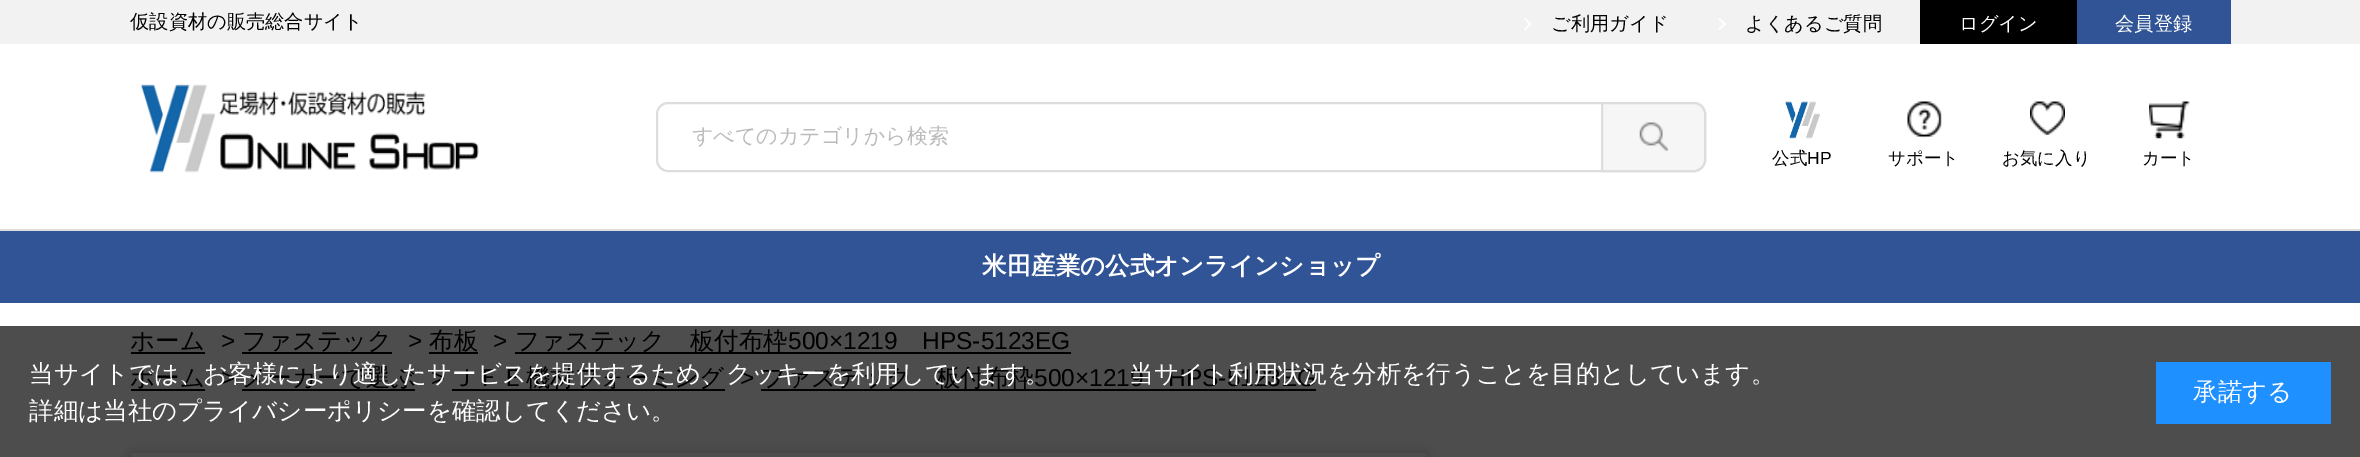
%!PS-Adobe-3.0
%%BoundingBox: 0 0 2360 457
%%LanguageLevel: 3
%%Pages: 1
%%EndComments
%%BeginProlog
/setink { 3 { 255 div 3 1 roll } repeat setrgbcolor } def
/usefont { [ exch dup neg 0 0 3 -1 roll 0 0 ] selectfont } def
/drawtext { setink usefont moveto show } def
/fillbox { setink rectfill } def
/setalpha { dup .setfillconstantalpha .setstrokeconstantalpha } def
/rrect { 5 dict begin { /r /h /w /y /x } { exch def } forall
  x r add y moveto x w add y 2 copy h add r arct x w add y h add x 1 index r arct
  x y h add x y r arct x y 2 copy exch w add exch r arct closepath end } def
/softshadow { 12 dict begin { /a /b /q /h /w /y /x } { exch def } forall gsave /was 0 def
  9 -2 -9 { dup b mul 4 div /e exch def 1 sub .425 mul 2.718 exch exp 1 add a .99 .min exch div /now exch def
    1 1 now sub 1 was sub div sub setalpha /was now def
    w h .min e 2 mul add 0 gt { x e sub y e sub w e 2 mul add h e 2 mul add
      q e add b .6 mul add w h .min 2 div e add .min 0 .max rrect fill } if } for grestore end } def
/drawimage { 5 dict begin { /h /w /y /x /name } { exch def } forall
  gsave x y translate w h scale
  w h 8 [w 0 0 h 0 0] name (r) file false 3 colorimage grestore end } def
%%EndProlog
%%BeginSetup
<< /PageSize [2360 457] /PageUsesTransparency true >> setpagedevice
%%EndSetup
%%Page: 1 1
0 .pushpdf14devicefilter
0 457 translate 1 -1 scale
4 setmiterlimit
0 0 2360 457 255 255 255 fillbox
0 326 2360 131 77 77 77 fillbox
0 229 2360 2 221 221 221 fillbox
0 0 2360 44 242 242 242 fillbox
(仮設資材の販売総合サイト) 130 28 /WenQuanYiZenHei-Medium 19.25 0 0 0 drawtext
255 255 255 setink
1525.5 18 moveto 1531.5 24 lineto 1530.5 25.5 lineto 1524 19 lineto closepath fill
1530.5 23 moveto 1531.5 24 lineto 1525.5 30 lineto 1524 29 lineto closepath fill
(ご利用ガイド) 1551 30 /WenQuanYiZenHei-Medium 19.25 0 0 0 drawtext
255 255 255 setink
1719.5 18 moveto 1726 24 lineto 1724.5 25.5 lineto 1718.5 19 lineto closepath fill
1724.5 23 moveto 1726 24 lineto 1719.5 30 lineto 1718.5 29 lineto closepath fill
(よくあるご質問) 1745 30 /WenQuanYiZenHei-Medium 19.25 0 0 0 drawtext
1920 0 157 44 0 0 0 fillbox
(ログイン) 1959 30 /WenQuanYiZenHei-Medium 19.25 255 255 255 drawtext
2077 0 154 44 48 84 150 fillbox
(会員登録) 2115 30 /WenQuanYiZenHei-Medium 19.25 255 255 255 drawtext
(assets/img1.rgb) 140 84 339 89 drawimage
221 221 221 setink
2 setlinewidth
657 103 1048 68 11 rrect stroke
(すべてのカテゴリから検索) 692 143 /WenQuanYiZenHei-Medium 21 187 187 187 drawtext
246 246 246 setink
1601 102 moveto 1694 102 lineto 1700.5 102 1706 107.5 1706 114 curveto 1706 160 lineto 1706 166.5 1700.5 172 1694 172 curveto 1601 172 lineto closepath fill
(assets/img2.rgb) 1639 122 29 29 drawimage
221 221 221 setink
1602 103 moveto 1694 103 lineto 1700 103 1705 108 1705 114 curveto 1705 160 lineto 1705 166 1700 171 1694 171 curveto 1602 171 lineto closepath stroke
(assets/img3.rgb) 1785 101 35 38 drawimage
(公式) 1772 164 /WenQuanYiZenHei-Medium 17.5 0 0 0 drawtext
(HP) 1807 164 /LiberationSans-Regular 17.5 0 0 0 drawtext
(assets/img4.rgb) 1907 101 35 37 drawimage
(サポート) 1888 164 /WenQuanYiZenHei-Medium 17.5 0 0 0 drawtext
(assets/img5.rgb) 2030 101 35 34 drawimage
(お気に入り) 2002 164 /WenQuanYiZenHei-Medium 17.5 0 0 0 drawtext
(assets/img6.rgb) 2149 101 41 38 drawimage
(カート) 2142 164 /WenQuanYiZenHei-Medium 17.5 0 0 0 drawtext
0 231 2360 72 48 84 150 fillbox
(米田産業の公式オンラインショップ) 982 274 /WenQuanYiZenHei-Bold 24.5 255 255 255 drawtext
(ホーム) 130 349 /WenQuanYiZenHei-Medium 24.5 0 0 0 drawtext
131 352 74 2 0 0 0 fillbox
(>) 221 349 /LiberationSans-Regular 24.5 0 0 0 drawtext
242 352 150 2 0 0 0 fillbox
(ファステック) 242 349 /WenQuanYiZenHei-Medium 24.5 0 0 0 drawtext
(>) 408 349 /LiberationSans-Regular 24.5 0 0 0 drawtext
429 352 49 2 0 0 0 fillbox
(布板) 429 349 /WenQuanYiZenHei-Medium 24.5 0 0 0 drawtext
(>) 493 349 /LiberationSans-Regular 24.5 0 0 0 drawtext
515 352 556 2 0 0 0 fillbox
(ファステック　板付布枠) 515 349 /WenQuanYiZenHei-Medium 24.5 0 0 0 drawtext
(500×1219) 788 349 /LiberationSans-Regular 24.5 0 0 0 drawtext
(HPS-5123EG) 922 349 /LiberationSans-Regular 24.5 0 0 0 drawtext
(ホーム) 130 386 /WenQuanYiZenHei-Medium 24.5 0 0 0 drawtext
131 389 74 2 0 0 0 fillbox
(>) 221 386 /LiberationSans-Regular 24.5 0 0 0 drawtext
(メーカーで選ぶ) 242 386 /WenQuanYiZenHei-Medium 24.5 0 0 0 drawtext
242 389 173 2 0 0 0 fillbox
(>) 431 386 /LiberationSans-Regular 24.5 0 0 0 drawtext
452 389 273 2 0 0 0 fillbox
(ＪＦＥ機材フォーミング) 452 386 /WenQuanYiZenHei-Medium 24.5 0 0 0 drawtext
(>) 740 386 /LiberationSans-Regular 24.5 0 0 0 drawtext
761 389 555 2 0 0 0 fillbox
(ファステック　板付布枠) 761 386 /WenQuanYiZenHei-Medium 24.5 0 0 0 drawtext
(500×1219) 1034 386 /LiberationSans-Regular 24.5 0 0 0 drawtext
(HPS-5123EG) 1168 386 /LiberationSans-Regular 24.5 0 0 0 drawtext
61 61 61 setink
131 453 1295 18 0 4.5 1 softshadow
131 453 1295 4 77 77 77 fillbox
/WenQuanYiZenHei-Medium 24.5 usefont
255 255 255 setink
29 382 moveto -1 0 32 (当サイトでは、お客様により適したサービスを提供するため、クッキーを利用しています。 　　　当サイト利用状況を分析を行うことを目的としています。) widthshow
(詳細は当社のプライバシーポリシーを確認してください。) 29 419 /WenQuanYiZenHei-Medium 24.5 255 255 255 drawtext
2156 362 175 62 30 144 255 fillbox
(承諾する) 2193 400 /WenQuanYiZenHei-Medium 24.5 255 255 255 drawtext
.poppdf14devicefilter showpage
%%EOF
